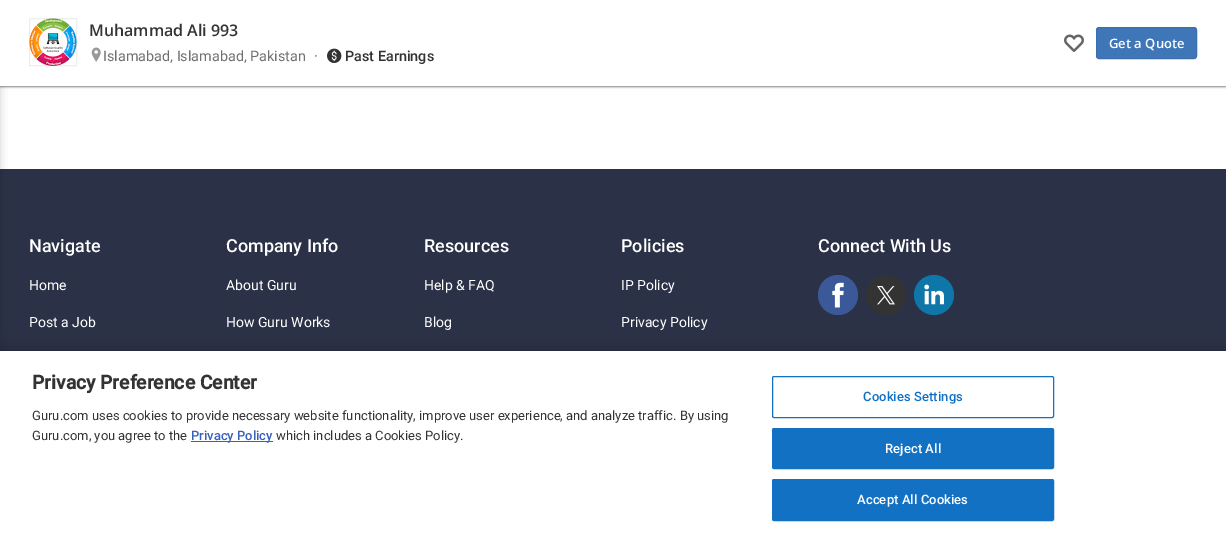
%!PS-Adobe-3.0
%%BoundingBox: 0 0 1226 541
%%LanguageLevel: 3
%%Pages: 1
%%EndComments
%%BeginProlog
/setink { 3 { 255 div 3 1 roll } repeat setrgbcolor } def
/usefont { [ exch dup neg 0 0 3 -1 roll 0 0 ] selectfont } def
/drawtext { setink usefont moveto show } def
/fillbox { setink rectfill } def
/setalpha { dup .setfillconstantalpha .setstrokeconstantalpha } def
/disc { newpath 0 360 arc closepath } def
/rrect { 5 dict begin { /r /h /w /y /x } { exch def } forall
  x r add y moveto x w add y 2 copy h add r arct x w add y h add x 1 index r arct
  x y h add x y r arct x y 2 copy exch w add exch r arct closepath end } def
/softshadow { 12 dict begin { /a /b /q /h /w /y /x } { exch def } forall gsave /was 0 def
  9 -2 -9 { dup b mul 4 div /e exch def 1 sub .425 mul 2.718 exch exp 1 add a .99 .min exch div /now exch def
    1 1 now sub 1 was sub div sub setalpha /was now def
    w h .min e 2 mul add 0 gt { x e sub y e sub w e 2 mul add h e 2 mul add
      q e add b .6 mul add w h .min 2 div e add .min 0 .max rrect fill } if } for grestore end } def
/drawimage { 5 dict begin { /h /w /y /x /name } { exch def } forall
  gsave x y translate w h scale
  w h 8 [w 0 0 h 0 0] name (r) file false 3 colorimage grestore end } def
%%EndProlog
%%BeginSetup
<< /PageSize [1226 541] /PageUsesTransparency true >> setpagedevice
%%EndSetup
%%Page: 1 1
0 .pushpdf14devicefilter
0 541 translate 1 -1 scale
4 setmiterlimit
0 0 1226 541 255 255 255 fillbox
0 169 1226 182 43 50 71 fillbox
0 0 0 setink
-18 0 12 541 0 6 0.6 softshadow
0 1 1226 86 0 1 0.5 softshadow
0 0 1226 86 255 255 255 fillbox
(assets/img1.rgb) 29 18 48 48 drawimage
0.07 setalpha
0 0 0 setink
29.5 18.5 47 47 rectstroke
1 setalpha
(Muhammad Ali 993) 89 36 /OpenSans-SemiBold 16 51 51 51 drawtext
(assets/img2.rgb) 91 47 10 15 drawimage
(Islamabad, Islamabad, Pakistan) 103 61 /Roboto-Regular 14.4 112 112 112 drawtext
(·) 314 61 /Roboto-Regular 14.4 102 102 102 drawtext
(assets/img3.rgb) 327 48 15 15 drawimage
(Past Earnings) 345 61 /Roboto-Medium 14.4 51 51 51 drawtext
(assets/img4.rgb) 1064 34 20 18 drawimage
62 118 184 setink
1096.5 27.5 100 31 2.5 rrect gsave fill grestore
58 111 172 setink
stroke
(Get a Quote) 1109 48 /OpenSans-SemiBold 13 255 255 255 drawtext
(Navigate) 29 252 /Roboto-Medium 18 255 255 255 drawtext
(Home) 29 290 /Roboto-Regular 14 255 255 255 drawtext
(Post a Job) 29 327 /Roboto-Regular 14 255 255 255 drawtext
(Company Info) 226 252 /Roboto-Medium 18 255 255 255 drawtext
(About Guru) 226 290 /Roboto-Regular 14 255 255 255 drawtext
(How Guru Works) 226 327 /Roboto-Regular 14 255 255 255 drawtext
(Resources) 424 252 /Roboto-Medium 18 255 255 255 drawtext
(Help & FAQ) 424 290 /Roboto-Regular 14 255 255 255 drawtext
(Blog) 424 327 /Roboto-Regular 14 255 255 255 drawtext
(Policies) 621 252 /Roboto-Medium 18 255 255 255 drawtext
(IP Policy) 621 290 /Roboto-Regular 14 255 255 255 drawtext
(Privacy Policy) 621 327 /Roboto-Regular 14 255 255 255 drawtext
(Connect With Us) 818 252 /Roboto-Medium 18 255 255 255 drawtext
59 89 152 setink
838 295 20 disc fill
(assets/img5.rgb) 832 282 12 26 drawimage
51 51 51 setink
886 295 20 disc fill
(assets/img6.rgb) 877 286 18 19 drawimage
14 118 168 setink
934 295 20 disc fill
(assets/img7.rgb) 924 284 20 21 drawimage
0 0 0 setink
0 351 1226 190 0 9 0.2 softshadow
0 351 1226 190 255 255 255 fillbox
(Privacy Preference Center) 32 389 /Roboto-Bold 19.25 51 51 51 drawtext
(Guru.com uses cookies to provide necessary website functionality, improve user experience, and analyze traffic. By using) 32 420 /Roboto-Regular 13 51 51 51 drawtext
(Guru.com, you agree to the) 32 440 /Roboto-Regular 13 51 51 51 drawtext
191 441 82 1 56 96 190 fillbox
(Privacy Policy) 191 440 /Roboto-Medium 13 56 96 190 drawtext
(which includes a Cookies Policy.) 276 440 /Roboto-Regular 13 51 51 51 drawtext
19 113 195 setink
772.5 376.5 281 41 1.5 rrect stroke
/Roboto-Medium 13 usefont
863 401 moveto 0.1 0 (Cookies Settings) ashow
772.5 428.5 281 40 1.5 rrect gsave fill grestore
stroke
255 255 255 setink
885 453 moveto 0.1 0 (Reject All) ashow
19 113 195 setink
772.5 479.5 281 41 1.5 rrect gsave fill grestore
stroke
255 255 255 setink
857 504 moveto 0.1 0 (Accept All Cookies) ashow
.poppdf14devicefilter showpage
%%EOF
